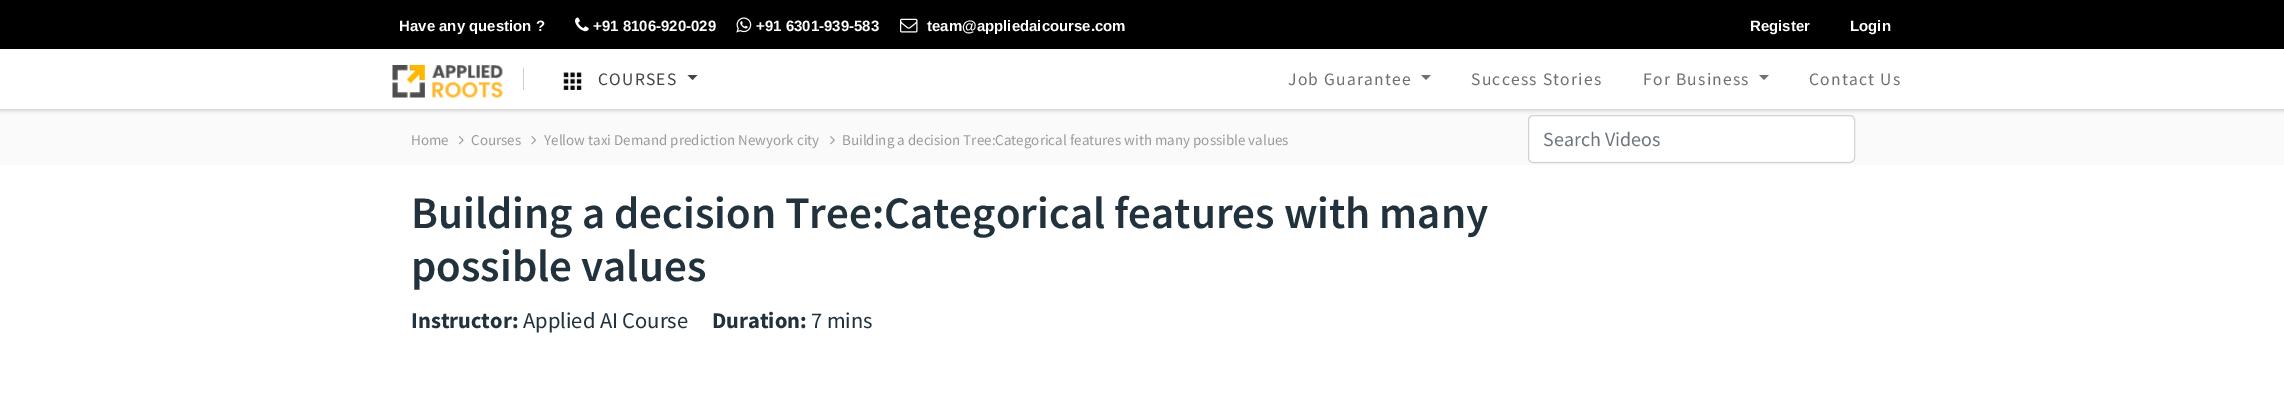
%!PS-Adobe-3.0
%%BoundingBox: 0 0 2284 395
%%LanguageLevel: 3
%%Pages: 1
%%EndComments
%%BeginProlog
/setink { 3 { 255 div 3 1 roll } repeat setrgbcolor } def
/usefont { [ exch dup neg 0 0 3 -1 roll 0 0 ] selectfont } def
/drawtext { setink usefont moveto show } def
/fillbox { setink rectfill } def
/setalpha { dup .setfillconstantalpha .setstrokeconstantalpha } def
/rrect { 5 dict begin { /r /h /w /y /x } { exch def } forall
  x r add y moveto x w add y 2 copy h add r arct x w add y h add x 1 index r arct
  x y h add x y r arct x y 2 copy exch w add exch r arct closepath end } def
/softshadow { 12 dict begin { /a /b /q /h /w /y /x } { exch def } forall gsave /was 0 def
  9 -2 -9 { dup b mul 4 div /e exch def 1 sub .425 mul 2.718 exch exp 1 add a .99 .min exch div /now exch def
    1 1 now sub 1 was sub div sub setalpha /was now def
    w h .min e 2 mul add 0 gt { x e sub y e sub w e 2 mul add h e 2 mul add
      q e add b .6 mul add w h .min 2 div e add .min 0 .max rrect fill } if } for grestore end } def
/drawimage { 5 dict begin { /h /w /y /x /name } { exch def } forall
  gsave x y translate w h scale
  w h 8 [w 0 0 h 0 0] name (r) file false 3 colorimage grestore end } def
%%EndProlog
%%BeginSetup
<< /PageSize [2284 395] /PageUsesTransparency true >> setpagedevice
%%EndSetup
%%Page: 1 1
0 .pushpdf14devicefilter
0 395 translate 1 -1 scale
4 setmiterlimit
0 0 2284 395 255 255 255 fillbox
0 0 2284 49 0 0 0 fillbox
(Have any question ?) 399 31 /LiberationSans-Bold 15 255 255 255 drawtext
(assets/img1.rgb) 575 17 14 15 drawimage
(+91 8106-920-029) 593 31 /LiberationSans-Bold 15 255 255 255 drawtext
(assets/img2.rgb) 736 17 16 16 drawimage
(+91 6301-939-583) 756 31 /LiberationSans-Bold 15 255 255 255 drawtext
(assets/img3.rgb) 900 18 18 15 drawimage
(team@appliedaicourse.com) 927 31 /LiberationSans-Bold 15 255 255 255 drawtext
(Register) 1750 31 /LiberationSans-Bold 15 255 255 255 drawtext
(Login) 1850 31 /LiberationSans-Bold 15 255 255 255 drawtext
0 0 0 setink
0 50 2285 60 0 3 0.25 softshadow
0 49 2284 60 255 255 255 fillbox
(assets/img4.rgb) 392 65 111 33 drawimage
523 68 1 22 204 204 204 fillbox
(assets/img5.rgb) 563 72 19 18 drawimage
/SourceSansPro-Regular 17.5 usefont
68 68 68 setink
598 85 moveto 1.25 0 (COURSES) ashow
687.5 75 moveto 697.5 75 lineto 692.5 80 lineto closepath fill
112 112 112 setink
1288 85 moveto 1.25 0 (Job Guarantee) ashow
1421 75 moveto 1431 75 lineto 1426 80 lineto closepath fill
1471 85 moveto 1.25 0 (Success Stories) ashow
1643 85 moveto 1.25 0 (For Business) ashow
1759 75 moveto 1769 75 lineto 1764 80 lineto closepath fill
1809 85 moveto 1.25 0 (Contact Us) ashow
0 115 2284 50 250 250 250 fillbox
(Home) 411 145 /SourceSansPro-Regular 15 154 154 154 drawtext
(assets/img6.rgb) 458 136 6 9 drawimage
(Courses) 471 145 /SourceSansPro-Regular 15 154 154 154 drawtext
(assets/img7.rgb) 531 136 6 9 drawimage
(Yellow taxi Demand prediction Newyork city) 544 145 /SourceSansPro-Regular 15 154 154 154 drawtext
(assets/img8.rgb) 830 136 5 9 drawimage
(Building a decision Tree:Categorical features with many possible values) 842 145 /SourceSansPro-Regular 15 154 154 154 drawtext
255 255 255 setink
1529 116 325 45 4 rrect fill
206 212 218 setink
1528.5 115.5 326 47 4.5 rrect stroke
(Search Videos) 1543 146 /SourceSansPro-Regular 20 108 117 125 drawtext
(Building a decision Tree:Categorical features with many) 411 228 /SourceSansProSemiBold-SemiBold 45 34 50 61 drawtext
(possible values) 411 281 /SourceSansProSemiBold-SemiBold 45 34 50 61 drawtext
(Instructor:) 411 328 /SourceSansPro-Bold 22.5 34 50 61 drawtext
(Applied AI Course) 523 328 /SourceSansPro-Regular 22.5 34 50 61 drawtext
(Duration:) 712 328 /SourceSansPro-Bold 22.5 34 50 61 drawtext
(7 mins) 811 328 /SourceSansPro-Regular 22.5 34 50 61 drawtext
.poppdf14devicefilter showpage
%%EOF
